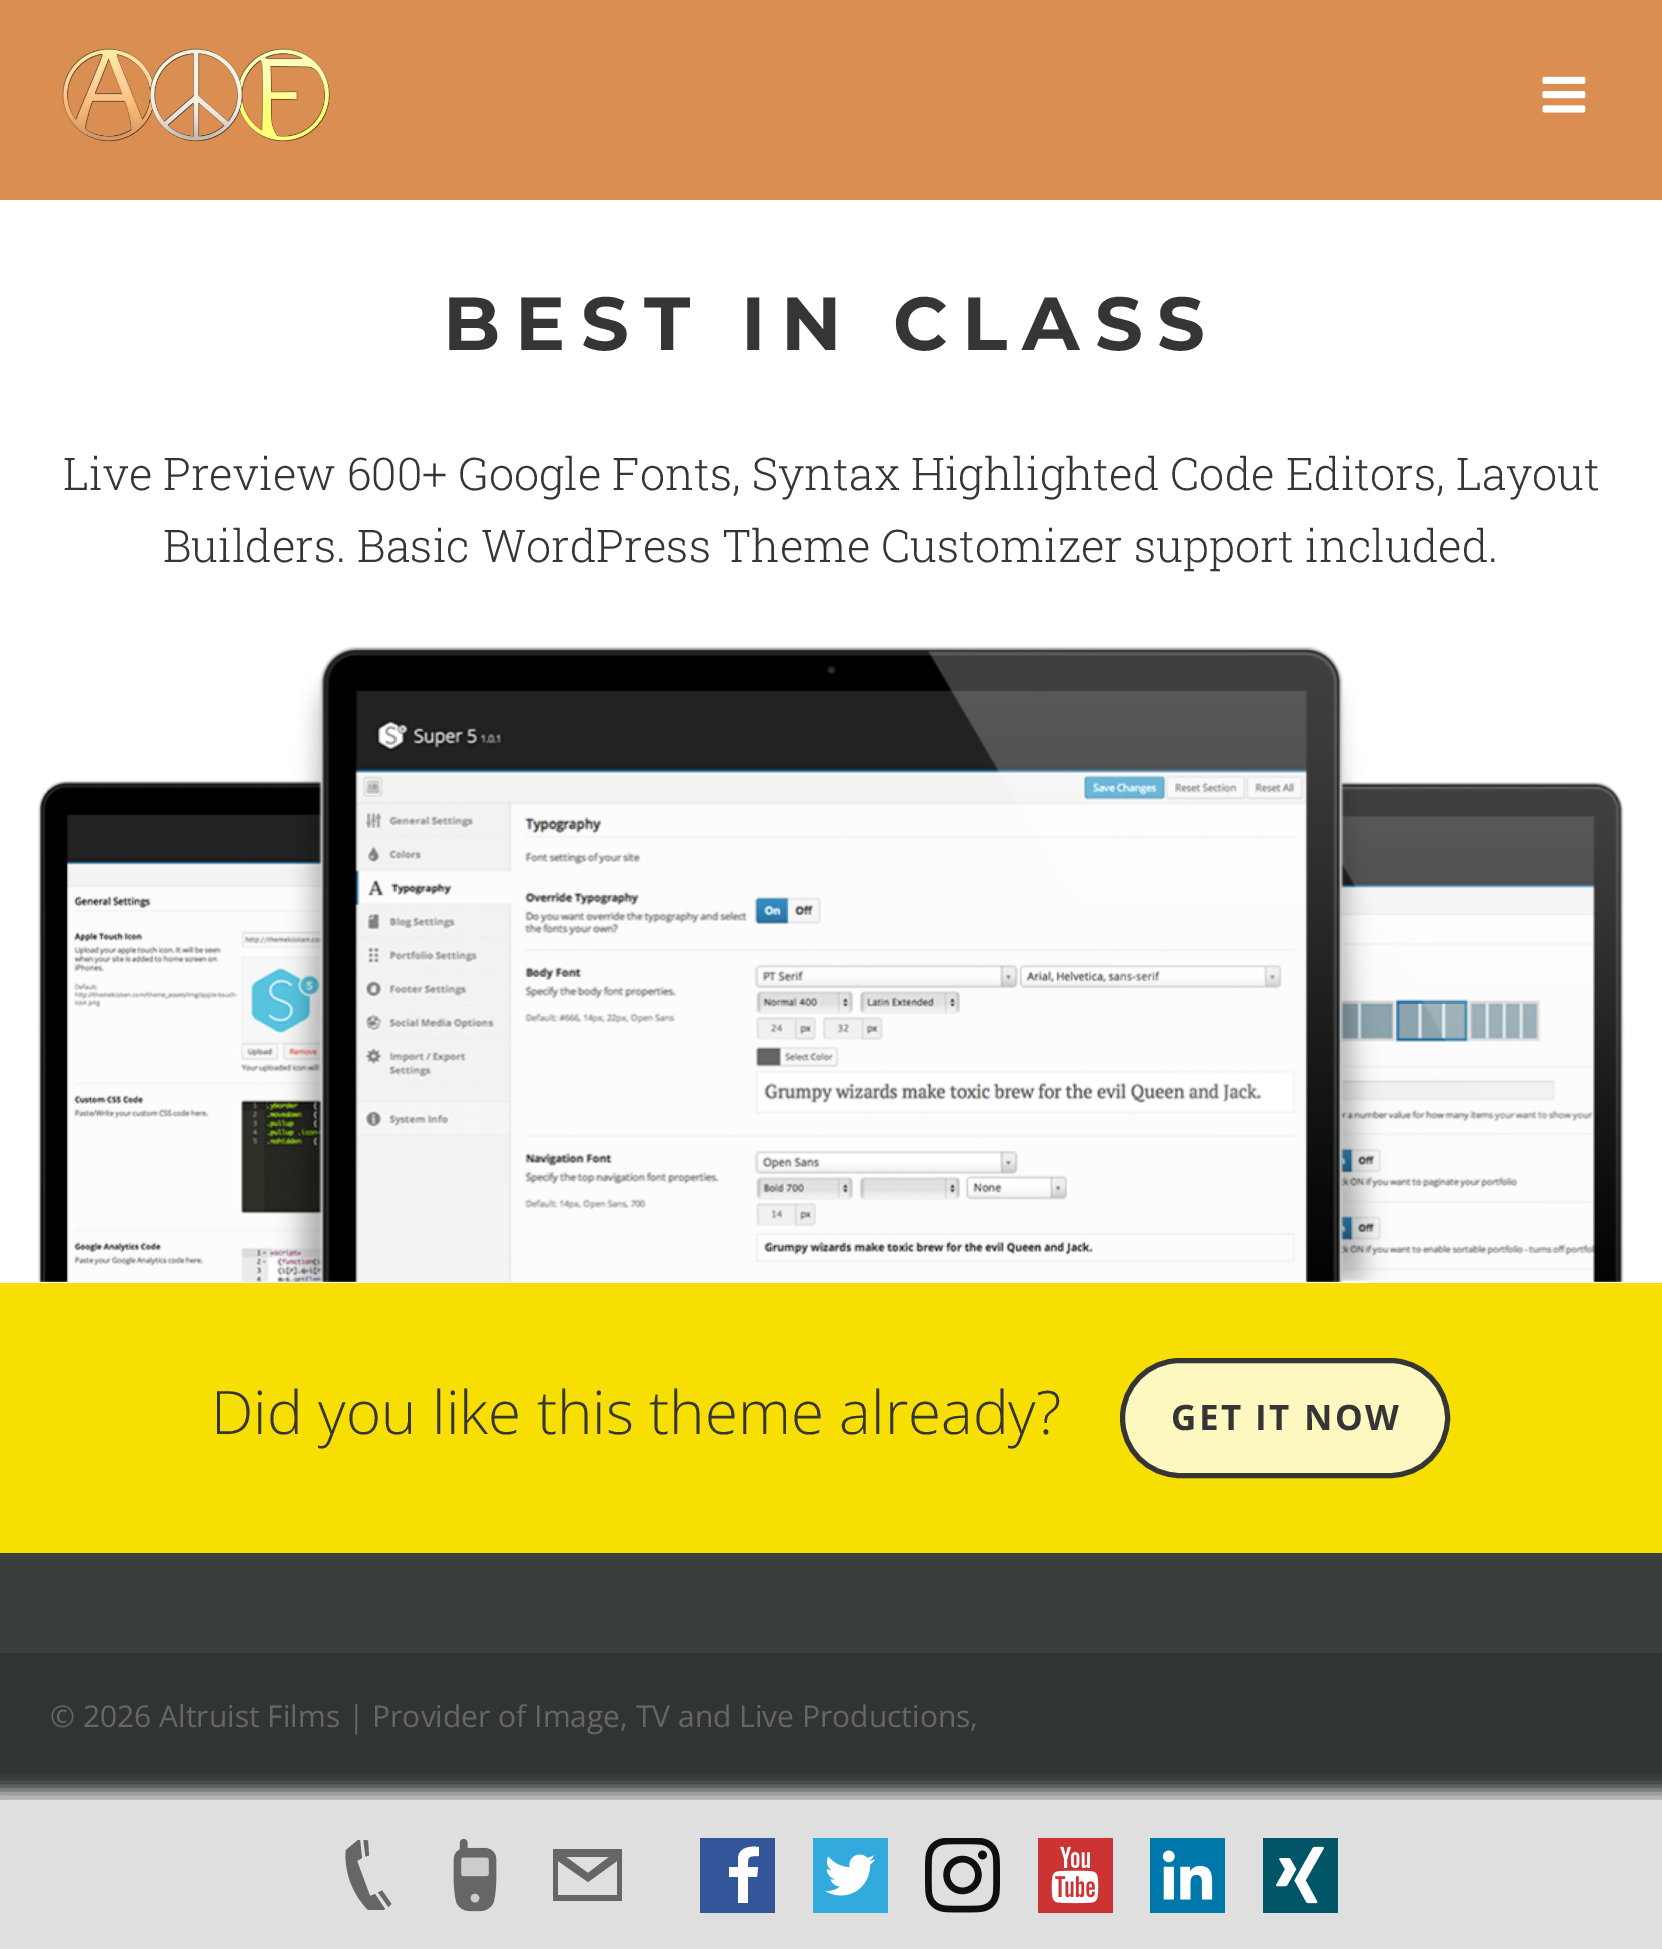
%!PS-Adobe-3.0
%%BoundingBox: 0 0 1662 1949
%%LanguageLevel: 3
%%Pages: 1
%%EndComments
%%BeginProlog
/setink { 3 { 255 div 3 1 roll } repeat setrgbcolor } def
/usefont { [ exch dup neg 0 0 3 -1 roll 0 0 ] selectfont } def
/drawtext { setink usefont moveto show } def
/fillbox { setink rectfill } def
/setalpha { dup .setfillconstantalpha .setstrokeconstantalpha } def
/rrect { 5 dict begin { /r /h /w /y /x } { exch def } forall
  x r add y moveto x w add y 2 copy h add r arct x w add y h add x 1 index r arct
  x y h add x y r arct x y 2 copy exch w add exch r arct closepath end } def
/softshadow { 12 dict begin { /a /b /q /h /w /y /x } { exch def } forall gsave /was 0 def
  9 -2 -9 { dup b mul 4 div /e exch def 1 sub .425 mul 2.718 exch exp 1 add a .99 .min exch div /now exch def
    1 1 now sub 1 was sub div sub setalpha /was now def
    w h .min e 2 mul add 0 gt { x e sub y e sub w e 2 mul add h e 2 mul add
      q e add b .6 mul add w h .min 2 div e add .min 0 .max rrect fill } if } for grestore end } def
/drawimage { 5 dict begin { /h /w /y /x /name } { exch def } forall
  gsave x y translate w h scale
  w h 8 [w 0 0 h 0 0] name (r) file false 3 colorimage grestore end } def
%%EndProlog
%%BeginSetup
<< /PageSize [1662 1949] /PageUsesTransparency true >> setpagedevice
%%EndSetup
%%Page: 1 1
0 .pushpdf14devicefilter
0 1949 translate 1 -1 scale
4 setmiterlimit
0 0 1662 1949 255 255 255 fillbox
0 0 1662 200 219 142 82 fillbox
(assets/img1.rgb) 62 48 268 94 drawimage
(assets/img2.rgb) 1542 76 44 37 drawimage
/Montserrat-Bold 75 usefont
53 53 53 setink
443 350 moveto 15 0 (BEST IN CLASS) ashow
(Live Preview 600+ Google Fonts, Syntax Highlighted Code Editors, Layout) 63 490 /RobotoSlab-Light 45 53 53 53 drawtext
(Builders. Basic WordPress Theme Customizer support included.) 163 562 /RobotoSlab-Light 45 53 53 53 drawtext
(assets/img3.rgb) 38 646 1587 636 drawimage
0 1283 1662 270 247 223 4 fillbox
(Did you like this theme already?) 211 1434 /OpenSans-Light 60 53 53 53 drawtext
253 247 192 setink
1122.5 1360.5 325 115 57.5 rrect gsave fill grestore
53 53 53 setink
5 setlinewidth
stroke
/OpenSans-Bold 35 usefont
1171 1430 moveto 2.5 0 (GET IT NOW) ashow
0 1553 1662 100 58 62 63 fillbox
0 1653 1662 147 48 52 52 fillbox
(© 2026 Altruist Films | Provider of Image, TV and Live Productions,) 50 1727 /OpenSans-Regular 30 102 102 102 drawtext
204 204 204 setink
-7 1790 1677 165 0 7.5 1 softshadow
0 1800 1662 149 223 223 223 fillbox
102 102 102 setink
346 1850 moveto 346 1850 341 1882 368 1910 curveto 384 1910 lineto 385 1909 lineto 375 1894 lineto 370 1896 lineto 357 1861 lineto 362 1858 lineto 360 1840 lineto 358 1840 lineto closepath fill
(assets/img4.rgb) 453 1838 44 74 drawimage
700 1838 75 75 51 85 153 fillbox
(assets/img5.rgb) 813 1838 75 75 drawimage
(assets/img6.rgb) 925 1838 75 75 drawimage
(assets/img7.rgb) 1038 1838 75 75 drawimage
(assets/img8.rgb) 1150 1838 75 75 drawimage
(assets/img9.rgb) 1263 1838 75 75 drawimage
102 102 102 setink
363.5 1840 moveto 365.5 1856.5 lineto 369 1855.5 lineto 368 1840.5 lineto closepath fill
378 1892.5 moveto 388.5 1907 lineto 391.5 1904 lineto 382 1890.5 lineto closepath fill
553 1849 moveto 553 1901 lineto 622 1901 lineto 622 1849 lineto closepath 609 1857 moveto 588 1873 lineto 566 1857 lineto closepath 617 1895 moveto 558 1895 lineto 558 1861 lineto 588 1882 lineto 617 1861 lineto closepath fill
255 255 255 setink
748 1903 moveto 748 1877 lineto 757 1877 lineto 758 1867 lineto 748 1867 lineto 748 1857 747 1856 759 1856 curveto 759 1847 lineto 750 1846 740 1847 738 1857 curveto 738 1867 lineto 729 1867 lineto 729 1877 lineto 738 1877 lineto 738 1903 lineto closepath fill
.poppdf14devicefilter showpage
%%EOF
